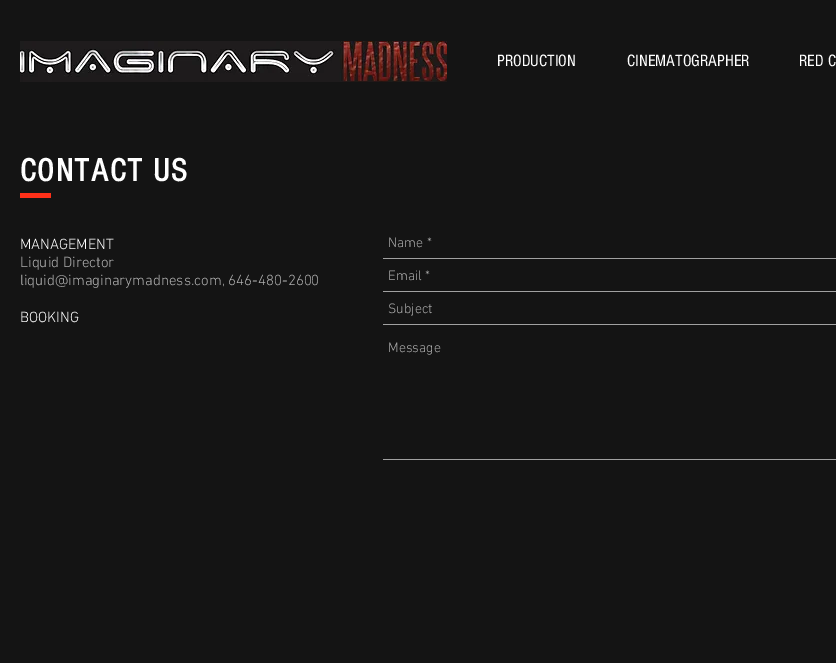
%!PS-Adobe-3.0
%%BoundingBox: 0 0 836 663
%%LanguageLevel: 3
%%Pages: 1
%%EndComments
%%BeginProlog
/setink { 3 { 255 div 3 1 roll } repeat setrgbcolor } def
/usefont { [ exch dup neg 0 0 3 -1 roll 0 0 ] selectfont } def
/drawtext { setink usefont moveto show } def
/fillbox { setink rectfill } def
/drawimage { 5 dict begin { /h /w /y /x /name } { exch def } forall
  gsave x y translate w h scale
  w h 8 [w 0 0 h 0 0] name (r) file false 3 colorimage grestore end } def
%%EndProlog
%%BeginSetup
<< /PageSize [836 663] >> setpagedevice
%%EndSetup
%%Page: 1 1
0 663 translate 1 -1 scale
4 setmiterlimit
0 0 836 663 20 20 20 fillbox
(assets/img1.rgb) 20 41 427 41 drawimage
(PRODUCTION) 497 66 /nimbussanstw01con-Regular 17 255 255 255 drawtext
(CINEMATOGRAPHER) 627 66 /nimbussanstw01con-Regular 17 255 255 255 drawtext
(RED C) 799 66 /nimbussanstw01con-Regular 17 255 255 255 drawtext
/nimbussanstw01con-Bold 33 usefont
20 181 moveto 1.6 0 (CONTACT US) ashow
20 193 31 5 255 48 25 fillbox
(MANAGEMENT) 20 249 /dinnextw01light-Light 15 255 255 255 drawtext
(Liquid Director) 20 267 /dinnextw01light-Light 15 177 177 177 drawtext
(liquid@imaginarymadness.com, 646-480-2600) 20 285 /dinnextw01light-Light 15 177 177 177 drawtext
(BOOKING) 20 322 /dinnextw01light-Light 15 255 255 255 drawtext
383 258 453 1 161 161 161 fillbox
(Name *) 388 247 /dinnextw01light-Light 14 169 169 169 drawtext
383 291 453 1 161 161 161 fillbox
(Email *) 388 280 /dinnextw01light-Light 14 169 169 169 drawtext
383 324 453 1 161 161 161 fillbox
(Subject) 388 313 /dinnextw01light-Light 14 169 169 169 drawtext
383 459 453 1 161 161 161 fillbox
(Message) 388 352 /dinnextw01light-Light 14 169 169 169 drawtext
showpage
%%EOF
